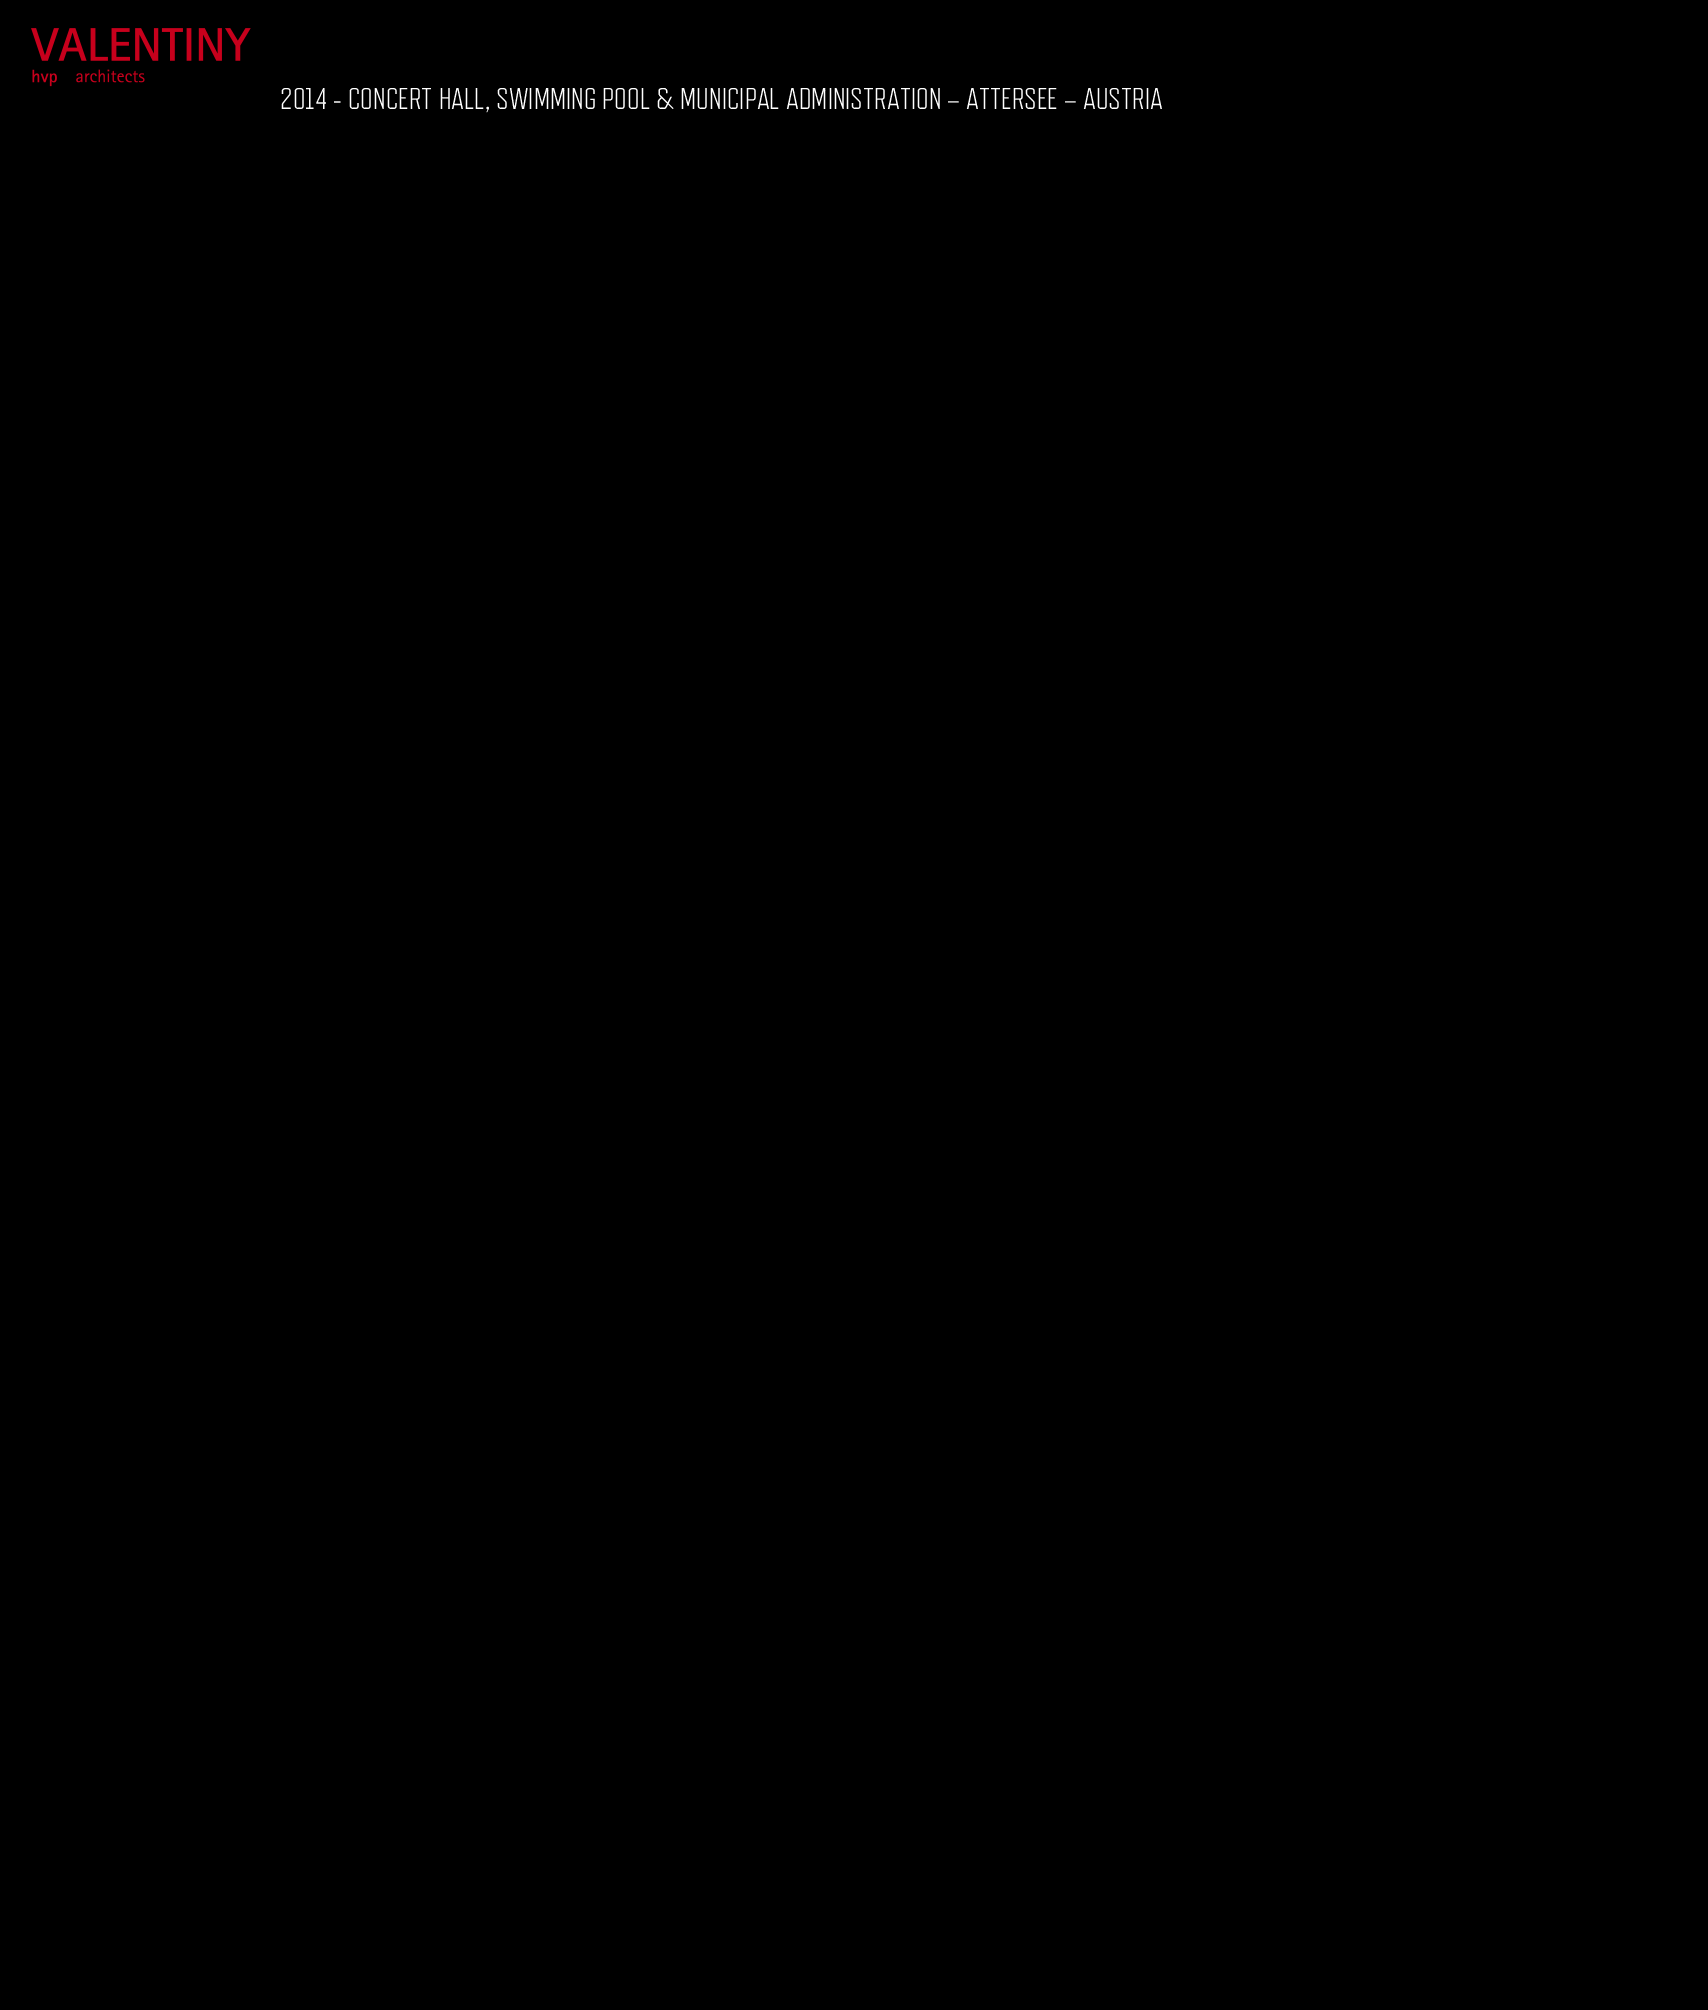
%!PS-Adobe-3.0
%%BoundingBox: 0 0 1708 2010
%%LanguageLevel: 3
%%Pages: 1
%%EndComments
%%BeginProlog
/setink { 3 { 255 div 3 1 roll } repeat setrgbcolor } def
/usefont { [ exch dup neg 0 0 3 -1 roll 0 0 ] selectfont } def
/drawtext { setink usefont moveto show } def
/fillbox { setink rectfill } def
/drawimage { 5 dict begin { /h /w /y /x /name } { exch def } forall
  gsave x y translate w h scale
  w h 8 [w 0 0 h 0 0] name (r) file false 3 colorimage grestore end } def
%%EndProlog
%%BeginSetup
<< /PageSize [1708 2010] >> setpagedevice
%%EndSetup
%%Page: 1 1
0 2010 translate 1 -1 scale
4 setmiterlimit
0 0 1708 2010 0 0 0 fillbox
(assets/img1.rgb) 31 28 220 59 drawimage
(2014 - CONCERT HALL, SWIMMING POOL & MUNICIPAL ADMINISTRATION – ATTERSEE – AUSTRIA) 280 109 /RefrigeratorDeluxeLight-Light 30 255 255 255 drawtext
showpage
%%EOF
